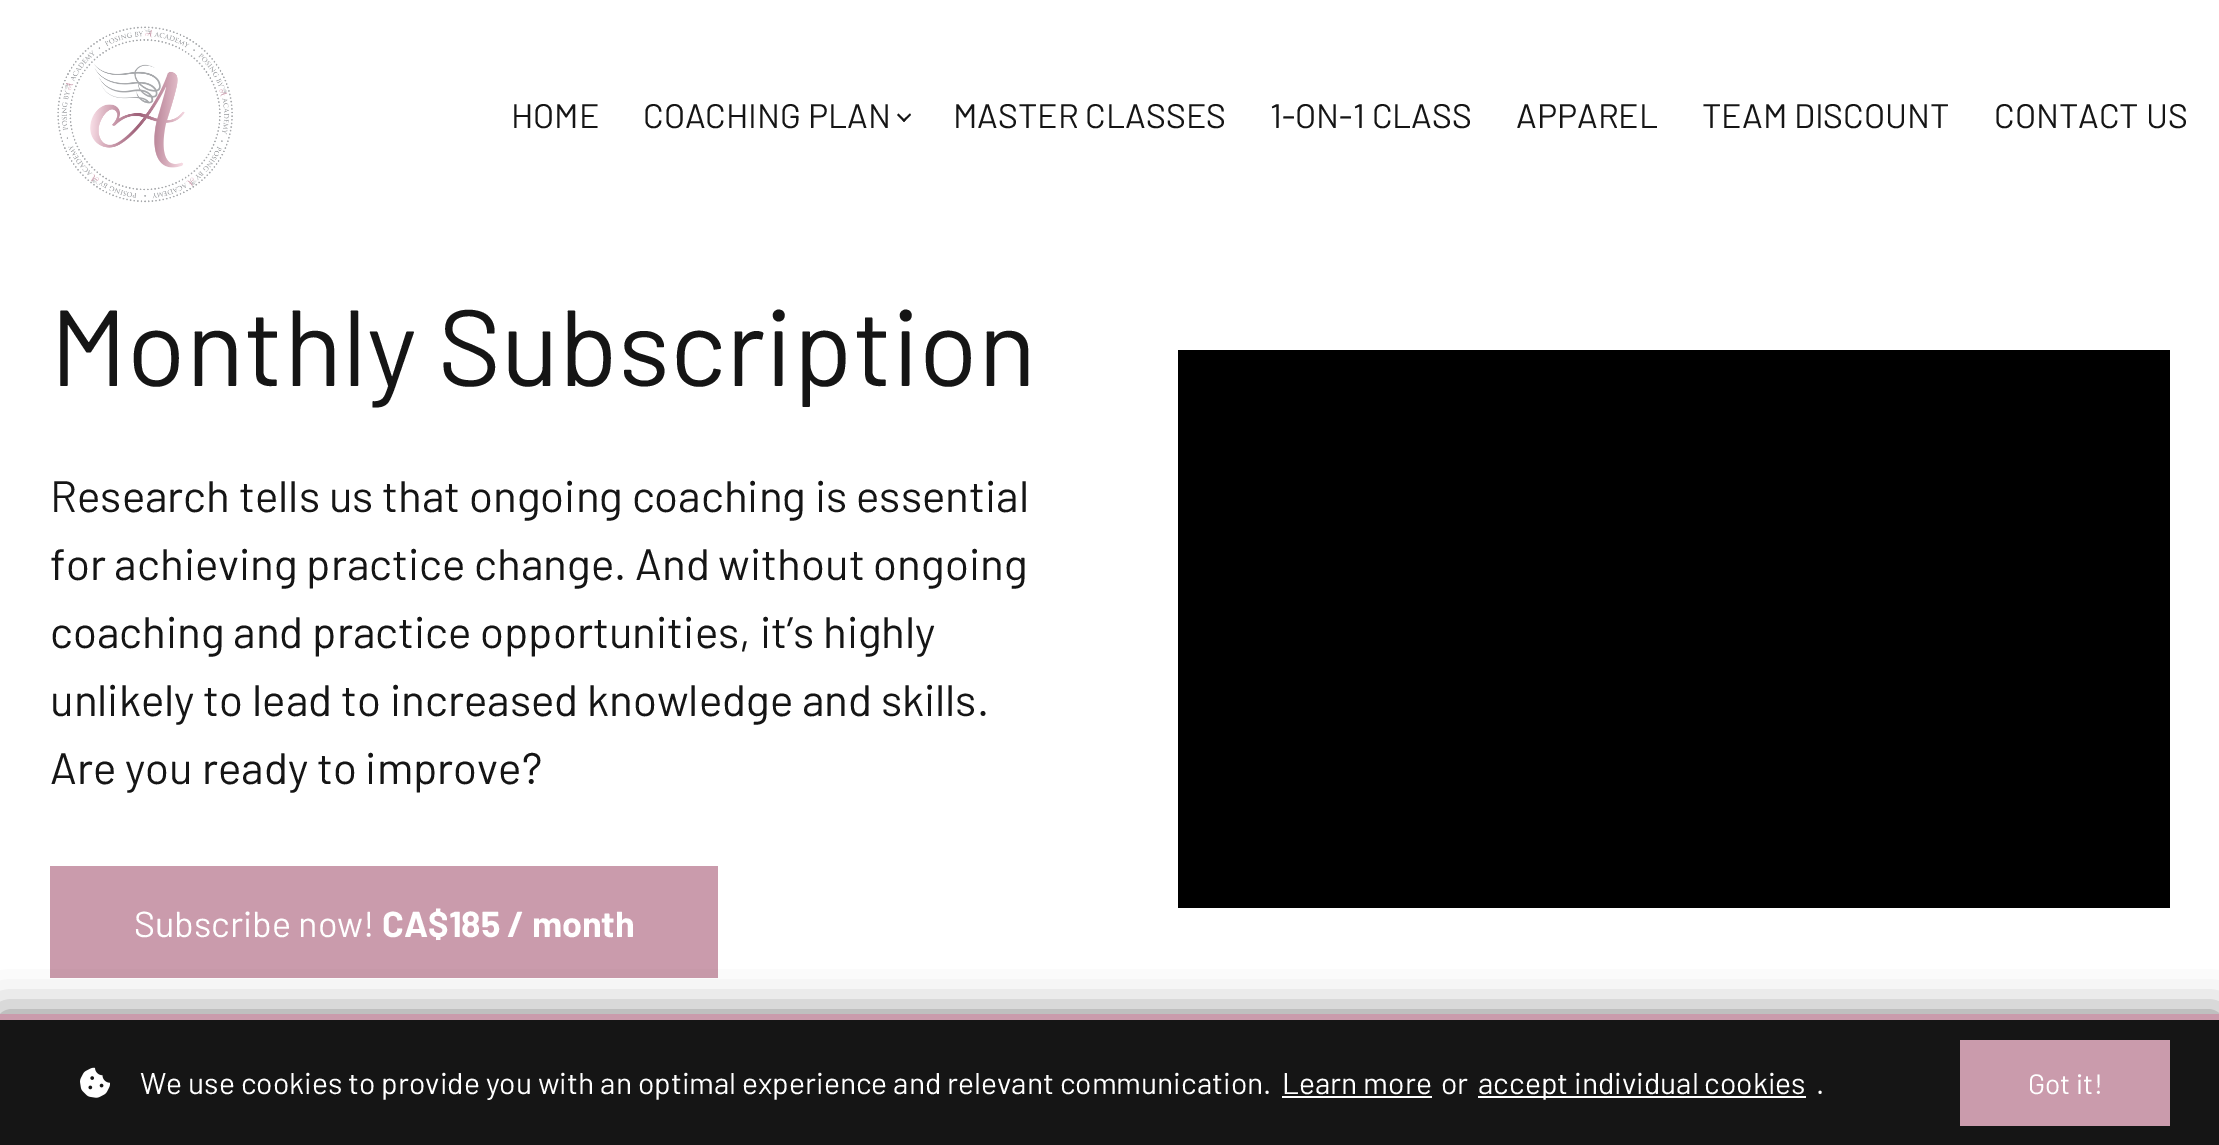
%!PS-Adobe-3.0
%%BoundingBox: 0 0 2219 1145
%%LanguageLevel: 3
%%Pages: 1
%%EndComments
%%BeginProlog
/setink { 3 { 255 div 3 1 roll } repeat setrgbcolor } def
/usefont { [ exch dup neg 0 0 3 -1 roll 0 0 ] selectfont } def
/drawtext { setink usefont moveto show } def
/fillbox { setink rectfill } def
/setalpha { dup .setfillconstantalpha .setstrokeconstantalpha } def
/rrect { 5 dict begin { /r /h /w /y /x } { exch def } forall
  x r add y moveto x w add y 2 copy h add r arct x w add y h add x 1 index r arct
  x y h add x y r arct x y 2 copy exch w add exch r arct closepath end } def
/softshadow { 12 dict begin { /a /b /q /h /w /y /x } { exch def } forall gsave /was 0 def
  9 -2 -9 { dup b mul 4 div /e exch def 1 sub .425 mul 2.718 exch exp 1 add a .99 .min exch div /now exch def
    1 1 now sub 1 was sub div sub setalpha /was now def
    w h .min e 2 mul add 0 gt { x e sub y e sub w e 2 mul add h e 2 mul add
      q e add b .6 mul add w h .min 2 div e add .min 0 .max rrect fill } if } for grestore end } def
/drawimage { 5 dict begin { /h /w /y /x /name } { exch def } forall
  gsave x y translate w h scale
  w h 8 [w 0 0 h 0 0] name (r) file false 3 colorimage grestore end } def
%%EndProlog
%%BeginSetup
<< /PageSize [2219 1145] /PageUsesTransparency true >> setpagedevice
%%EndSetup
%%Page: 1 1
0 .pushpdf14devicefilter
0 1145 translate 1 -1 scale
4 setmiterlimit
0 0 2219 1145 255 255 255 fillbox
(assets/img1.rgb) 57 26 176 177 drawimage
(HOME) 511 128 /Barlow-Regular 34 21 21 21 drawtext
(COACHING PLAN) 643 128 /Barlow-Regular 34 21 21 21 drawtext
911 115 moveto 904 122 lineto 902.5 120.5 lineto 910 113.5 lineto closepath fill
905.5 120.5 moveto 904 122 lineto 897 115 lineto 898.5 113.5 lineto closepath fill
(MASTER CLASSES) 953 128 /Barlow-Regular 34 21 21 21 drawtext
(1-ON-1 CLASS) 1270 128 /Barlow-Regular 34 21 21 21 drawtext
(APPAREL) 1516 128 /Barlow-Regular 34 21 21 21 drawtext
(TEAM DISCOUNT) 1702 128 /Barlow-Regular 34 21 21 21 drawtext
(CONTACT US) 1994 128 /Barlow-Regular 34 21 21 21 drawtext
(Monthly Subscription) 50 386 /Barlow-Regular 108 21 21 21 drawtext
(Research tells us that ongoing coaching is essential) 50 512 /Barlow-Regular 44 21 21 21 drawtext
(for achieving practice change. And without ongoing) 50 580 /Barlow-Regular 44 21 21 21 drawtext
(coaching and practice opportunities, it’s highly) 50 648 /Barlow-Regular 44 21 21 21 drawtext
(unlikely to lead to increased knowledge and skills.) 50 716 /Barlow-Regular 44 21 21 21 drawtext
(Are you ready to improve?) 50 784 /Barlow-Regular 44 21 21 21 drawtext
50 866 668 112 202 155 172 fillbox
(Subscribe now!) 134 937 /Barlow-Regular 36 255 255 255 drawtext
(CA$185 / month) 382 937 /Barlow-Bold 36 255 255 255 drawtext
1178 350 992 558 0 0 0 fillbox
0 1014 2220 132 0 20 0.5 softshadow
0 1020 2219 125 21 21 21 fillbox
0 1014 2219 6 202 155 172 fillbox
(assets/img2.rgb) 80 1067 30 31 drawimage
(We use cookies to provide you with an optimal experience and relevant communication.) 140 1094 /Barlow-Regular 30 255 255 255 drawtext
(Learn more) 1282 1094 /Barlow-Regular 30 255 255 255 drawtext
1282 1096 150 2 255 255 255 fillbox
(or) 1441 1094 /Barlow-Regular 30 255 255 255 drawtext
1478 1096 328 2 255 255 255 fillbox
(accept individual cookies) 1478 1094 /Barlow-Regular 30 255 255 255 drawtext
(.) 1816 1094 /Barlow-Regular 30 255 255 255 drawtext
1960 1040 210 86 202 155 172 fillbox
(Got it!) 2028 1094 /Barlow-Regular 28 255 255 255 drawtext
.poppdf14devicefilter showpage
%%EOF
